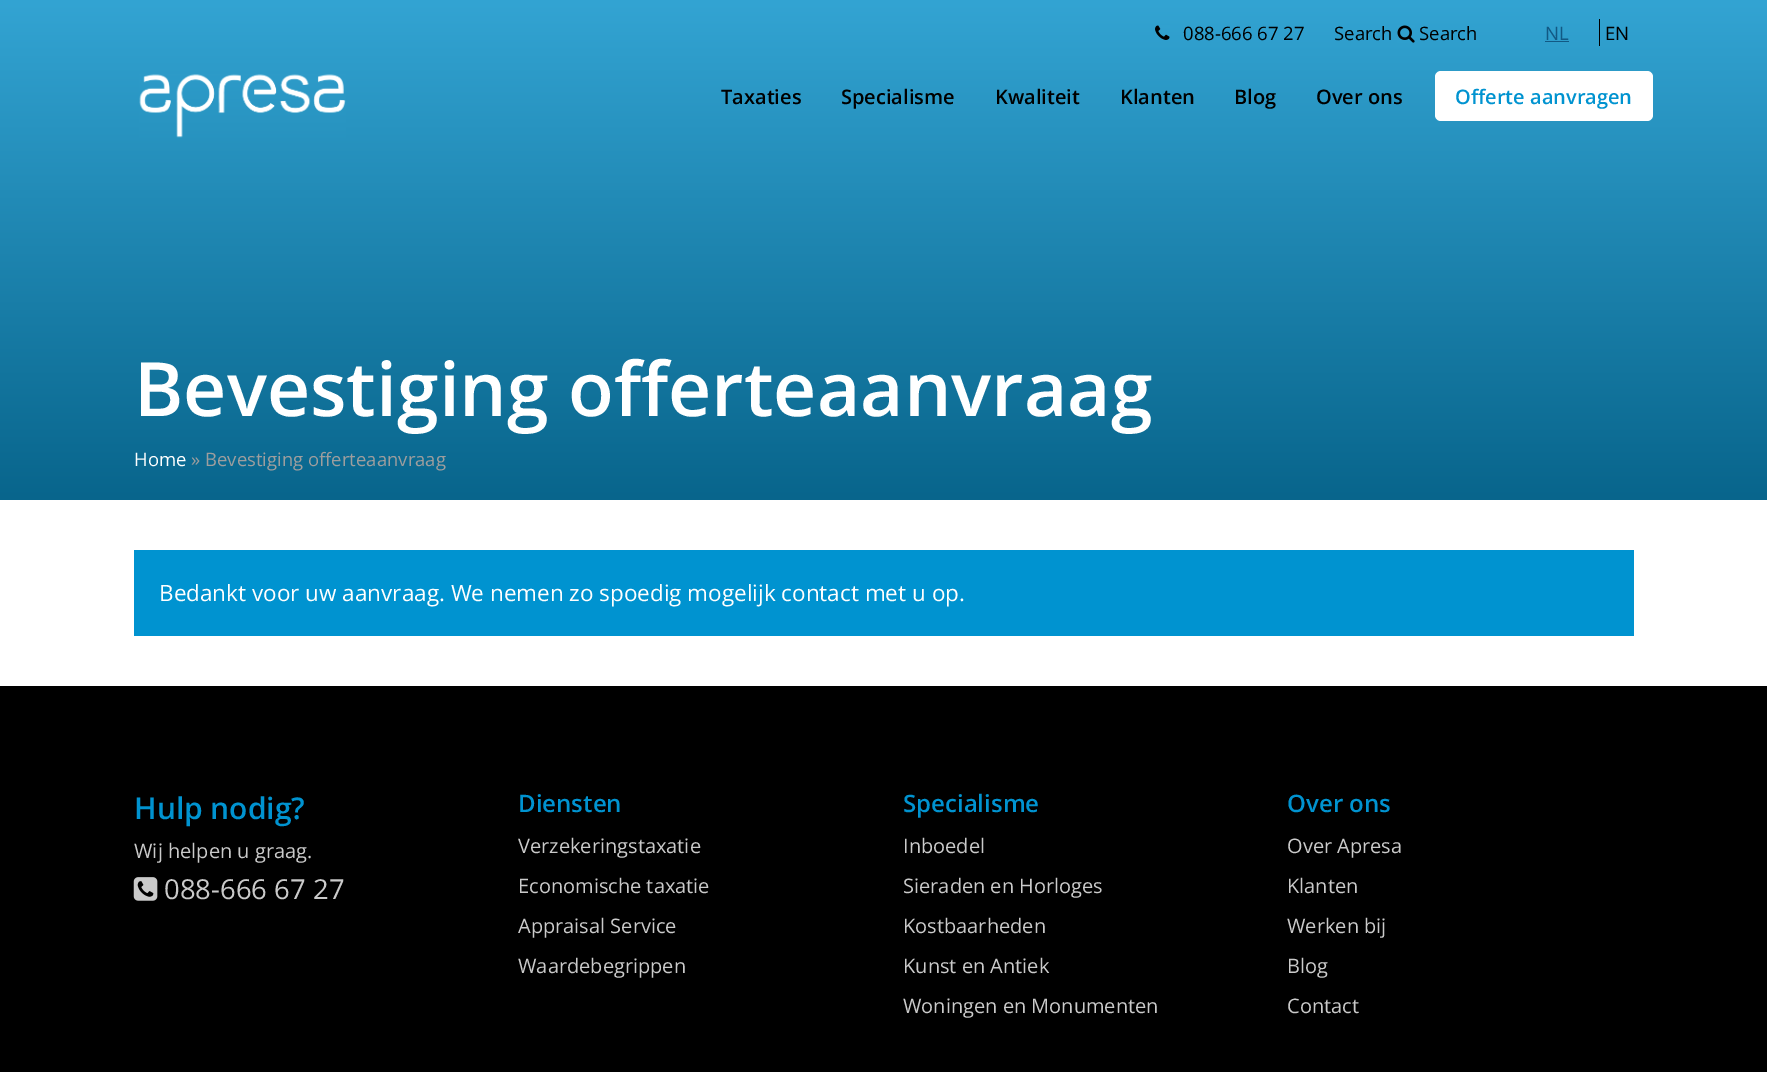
%!PS-Adobe-3.0
%%BoundingBox: 0 0 1767 1072
%%LanguageLevel: 3
%%Pages: 1
%%EndComments
%%BeginProlog
/setink { 3 { 255 div 3 1 roll } repeat setrgbcolor } def
/usefont { [ exch dup neg 0 0 3 -1 roll 0 0 ] selectfont } def
/drawtext { setink usefont moveto show } def
/fillbox { setink rectfill } def
/rrect { 5 dict begin { /r /h /w /y /x } { exch def } forall
  x r add y moveto x w add y 2 copy h add r arct x w add y h add x 1 index r arct
  x y h add x y r arct x y 2 copy exch w add exch r arct closepath end } def
/drawimage { 5 dict begin { /h /w /y /x /name } { exch def } forall
  gsave x y translate w h scale
  w h 8 [w 0 0 h 0 0] name (r) file false 3 colorimage grestore end } def
%%EndProlog
%%BeginSetup
<< /PageSize [1767 1072] >> setpagedevice
%%EndSetup
%%Page: 1 1
0 1072 translate 1 -1 scale
4 setmiterlimit
0 0 1767 1072 255 255 255 fillbox
gsave 0 0 moveto 1767 0 lineto 1767 500 lineto 0 500 lineto closepath clip newpath
<< /ShadingType 2 /ColorSpace /DeviceRGB /Coords [884 0 884 500] /Extend [true true] /Function << /FunctionType 2 /Domain [0 1] /C0 [0.2 0.643 0.827] /C1 [0.031 0.396 0.549] /N 1 >> >> shfill grestore
(assets/img1.rgb) 1155 25 15 15 drawimage
(088-666 67 27) 1183 40 /OpenSans-Regular 18.5 0 0 0 drawtext
(Search) 1334 40 /OpenSans-Regular 18.5 0 0 0 drawtext
(assets/img2.rgb) 1397 25 18 18 drawimage
(Search) 1419 40 /OpenSans-Regular 18.5 0 0 0 drawtext
(NL) 1545 40 /OpenSans-Regular 18.5 18 89 132 drawtext
1545 41 24 1 18 89 132 fillbox
1599 19 1 27 0 0 0 fillbox
(EN) 1605 40 /OpenSans-Regular 18.5 0 0 0 drawtext
(assets/img3.rgb) 139 74 207 64 drawimage
(Taxaties) 721 104 /OpenSans-SemiBold 20 0 0 0 drawtext
(Specialisme) 841 104 /OpenSans-SemiBold 20 0 0 0 drawtext
(Kwaliteit) 995 104 /OpenSans-SemiBold 20 0 0 0 drawtext
(Klanten) 1120 104 /OpenSans-SemiBold 20 0 0 0 drawtext
(Blog) 1234 104 /OpenSans-SemiBold 20 0 0 0 drawtext
(Over ons) 1316 104 /OpenSans-SemiBold 20 0 0 0 drawtext
255 255 255 setink
1435 71 218 50 6 rrect fill
(Offerte aanvragen) 1455 104 /OpenSans-SemiBold 20 0 147 208 drawtext
(Bevestiging offerteaanvraag) 134 416 /OpenSans-SemiBold 75 255 255 255 drawtext
(Home) 134 466 /OpenSans-Regular 18.5 255 255 255 drawtext
(» Bevestiging offerteaanvraag) 191 466 /OpenSans-Regular 18.5 158 158 158 drawtext
134 550 1500 86 0 147 208 fillbox
(Bedankt voor uw aanvraag. We nemen zo spoedig mogelijk contact met u op.) 159 601 /OpenSans-Regular 22.5 255 255 255 drawtext
0 686 1767 386 0 0 0 fillbox
(Hulp nodig?) 134 819 /OpenSans-SemiBold 30 0 147 208 drawtext
(Wij helpen u graag.) 134 858 /OpenSans-Regular 20 202 202 202 drawtext
(assets/img4.rgb) 133 877 25 24 drawimage
(088-666 67 27) 164 899 /OpenSans-Regular 27.5 202 202 202 drawtext
(Diensten) 518 812 /OpenSans-SemiBold 24 0 147 208 drawtext
(Verzekeringstaxatie) 518 853 /OpenSans-Regular 20 202 202 202 drawtext
(Economische taxatie) 518 893 /OpenSans-Regular 20 202 202 202 drawtext
(Appraisal Service) 518 933 /OpenSans-Regular 20 202 202 202 drawtext
(Waardebegrippen) 518 973 /OpenSans-Regular 20 202 202 202 drawtext
(Specialisme) 903 812 /OpenSans-SemiBold 24 0 147 208 drawtext
(Inboedel) 903 853 /OpenSans-Regular 20 202 202 202 drawtext
(Sieraden en Horloges) 903 893 /OpenSans-Regular 20 202 202 202 drawtext
(Kostbaarheden) 903 933 /OpenSans-Regular 20 202 202 202 drawtext
(Kunst en Antiek) 903 973 /OpenSans-Regular 20 202 202 202 drawtext
(Woningen en Monumenten) 903 1013 /OpenSans-Regular 20 202 202 202 drawtext
(Over ons) 1287 812 /OpenSans-SemiBold 24 0 147 208 drawtext
(Over Apresa) 1287 853 /OpenSans-Regular 20 202 202 202 drawtext
(Klanten) 1287 893 /OpenSans-Regular 20 202 202 202 drawtext
(Werken bij) 1287 933 /OpenSans-Regular 20 202 202 202 drawtext
(Blog) 1287 973 /OpenSans-Regular 20 202 202 202 drawtext
(Contact) 1287 1013 /OpenSans-Regular 20 202 202 202 drawtext
showpage
%%EOF
